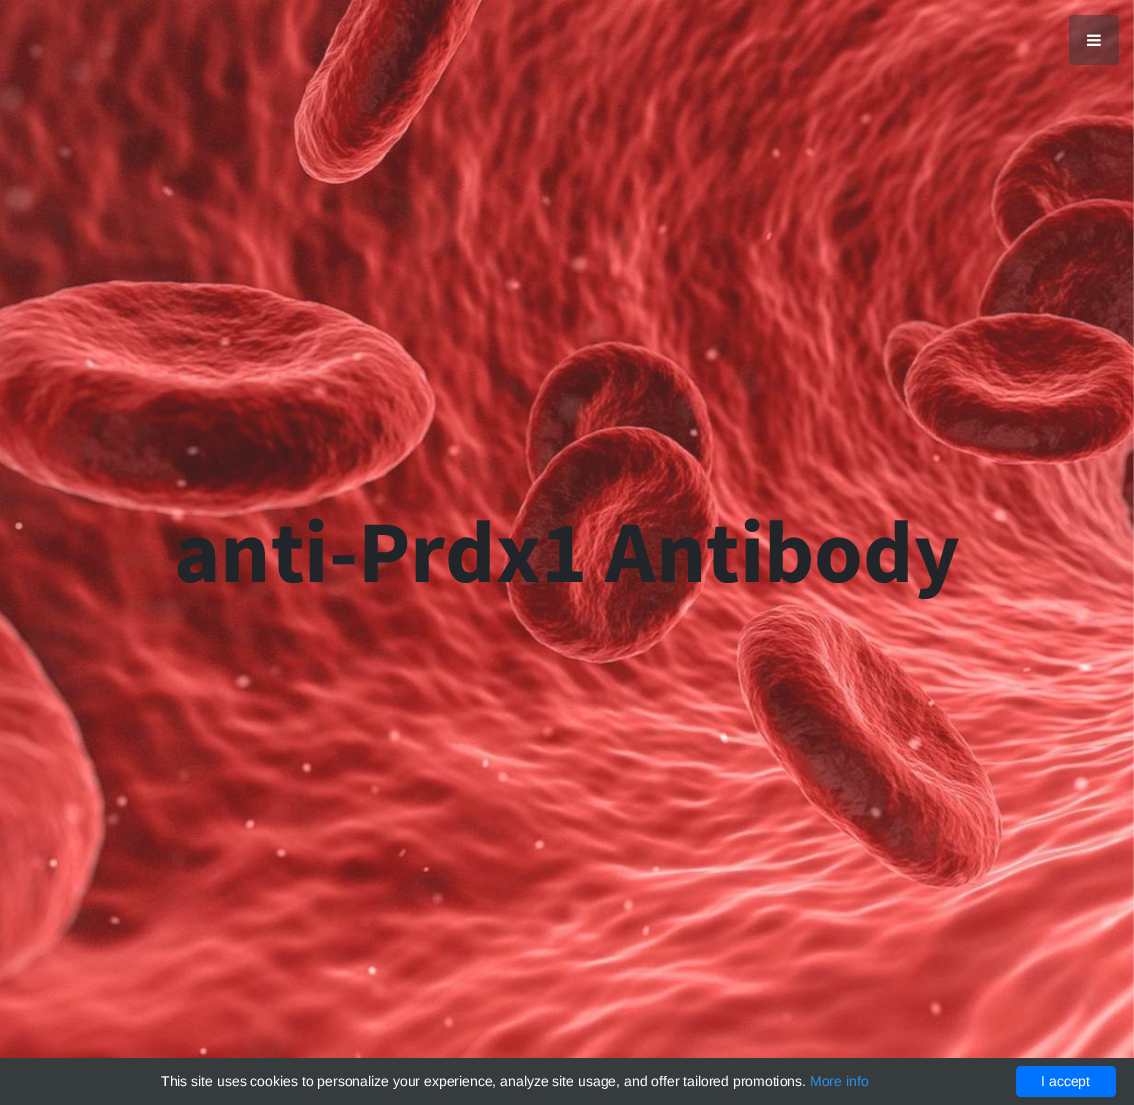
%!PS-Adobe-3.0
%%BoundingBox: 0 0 1134 1105
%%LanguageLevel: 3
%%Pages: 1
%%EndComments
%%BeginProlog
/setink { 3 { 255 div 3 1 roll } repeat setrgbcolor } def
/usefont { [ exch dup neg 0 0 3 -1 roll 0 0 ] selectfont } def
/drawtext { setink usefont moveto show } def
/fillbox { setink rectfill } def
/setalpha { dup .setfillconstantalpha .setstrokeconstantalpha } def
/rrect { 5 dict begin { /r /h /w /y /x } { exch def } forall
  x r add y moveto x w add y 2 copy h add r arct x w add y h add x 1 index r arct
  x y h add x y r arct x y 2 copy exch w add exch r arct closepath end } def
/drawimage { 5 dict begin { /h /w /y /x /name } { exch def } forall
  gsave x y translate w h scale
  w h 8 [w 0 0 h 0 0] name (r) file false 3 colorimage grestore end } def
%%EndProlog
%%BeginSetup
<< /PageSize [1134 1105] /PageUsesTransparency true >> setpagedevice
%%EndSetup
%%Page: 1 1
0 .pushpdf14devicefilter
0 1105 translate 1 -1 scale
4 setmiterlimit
0 0 1134 1105 255 255 255 fillbox
(assets/img2.rgb) 0 0 1134 1058 drawimage
0.5 setalpha
52 58 64 setink
1069 15 50 50 4 rrect fill
1 setalpha
(assets/img1.rgb) 1087 34 14 12 drawimage
(anti-Prdx1 Antibody) 174 582 /SourceSansPro-Bold 88 33 37 41 drawtext
0 1058 1134 47 54 59 62 fillbox
(This site uses cookies to personalize your experience, analyze site usage, and offer tailored promotions.) 161 1086 /LiberationSans-Regular 14 255 255 255 drawtext
(More info) 810 1086 /LiberationSans-Regular 14 41 144 234 drawtext
0 115 255 setink
1016 1066 100 31 5 rrect fill
(I accept) 1041 1086 /LiberationSans-Regular 14 255 255 255 drawtext
.poppdf14devicefilter showpage
%%EOF
